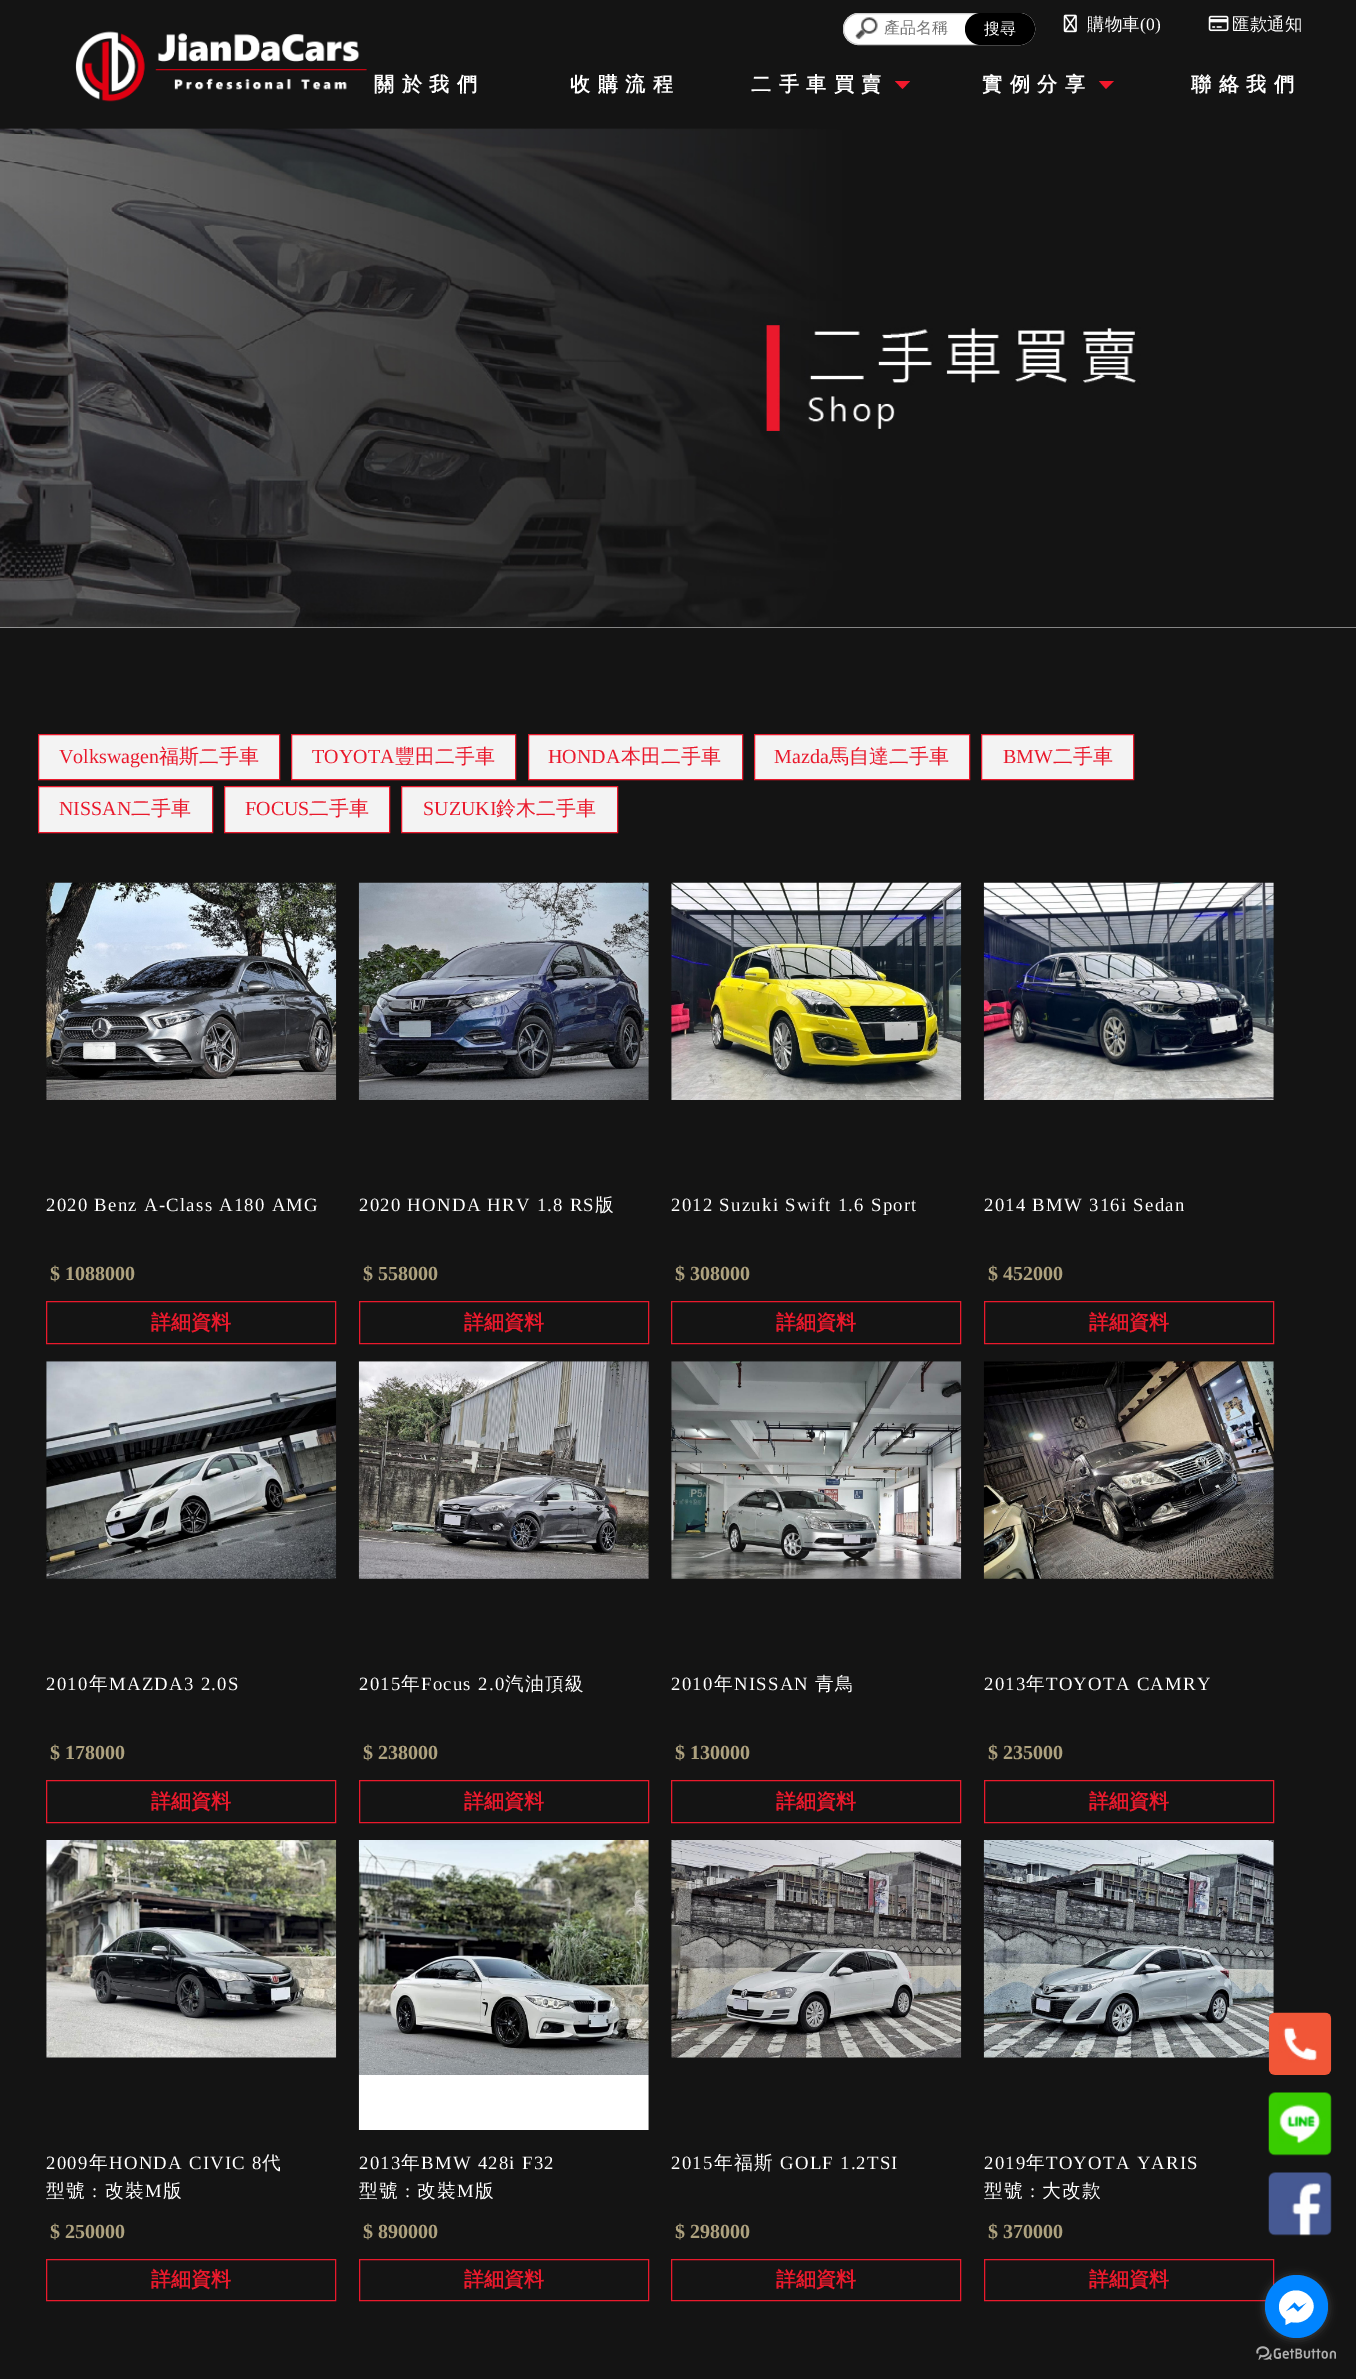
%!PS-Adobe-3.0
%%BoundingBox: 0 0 1356 2379
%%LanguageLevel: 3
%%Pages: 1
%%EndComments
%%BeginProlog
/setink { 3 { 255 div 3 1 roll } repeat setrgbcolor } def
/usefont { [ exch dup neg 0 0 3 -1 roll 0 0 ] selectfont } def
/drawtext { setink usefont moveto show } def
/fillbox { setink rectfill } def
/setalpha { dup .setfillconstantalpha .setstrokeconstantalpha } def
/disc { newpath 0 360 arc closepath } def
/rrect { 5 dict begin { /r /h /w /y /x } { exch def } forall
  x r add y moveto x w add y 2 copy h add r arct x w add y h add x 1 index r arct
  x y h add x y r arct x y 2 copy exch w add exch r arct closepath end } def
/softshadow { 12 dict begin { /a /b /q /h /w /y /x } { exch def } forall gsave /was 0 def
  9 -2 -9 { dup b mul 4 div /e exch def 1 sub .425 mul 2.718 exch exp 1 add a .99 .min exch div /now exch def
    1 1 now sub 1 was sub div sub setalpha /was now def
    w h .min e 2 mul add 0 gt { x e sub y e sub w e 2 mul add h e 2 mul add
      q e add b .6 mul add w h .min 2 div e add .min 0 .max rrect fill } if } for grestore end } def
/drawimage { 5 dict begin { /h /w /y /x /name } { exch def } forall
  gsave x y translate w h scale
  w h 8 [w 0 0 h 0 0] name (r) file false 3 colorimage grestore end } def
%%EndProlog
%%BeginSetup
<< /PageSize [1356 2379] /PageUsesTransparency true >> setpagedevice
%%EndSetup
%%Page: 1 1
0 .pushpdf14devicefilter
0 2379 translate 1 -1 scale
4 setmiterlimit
0 0 1356 2379 20 20 20 fillbox
255 255 255 setink
843 13 192 32 16 rrect fill
(assets/img1.rgb) 855 17 23 23 drawimage
204 204 204 setink
843.5 13.5 191 31 15.5 rrect stroke
(產品名稱) 884 33 /WenQuanYiZenHei-Medium 16 117 117 117 drawtext
0 0 0 setink
965 13 70 32 16 rrect fill
(搜尋) 984 34 /WenQuanYiZenHei-Medium 16 255 255 255 drawtext
(assets/img2.rgb) 1063 14 14 19 drawimage
(購物車) 1087 30 /WenQuanYiZenHei-Medium 17.5 255 255 255 drawtext
(\(0\)) 1140 30 /LiberationSerif-Regular 17.5 255 255 255 drawtext
(assets/img3.rgb) 1208 15 21 17 drawimage
(匯款通知) 1232 30 /WenQuanYiZenHei-Medium 17.5 255 255 255 drawtext
(assets/img4.rgb) 75 31 292 71 drawimage
/WenQuanYiZenHei-Bold 20 usefont
374 91 moveto 7.5 0 (關於我們) ashow
570 91 moveto 7.5 0 (收購流程) ashow
751 91 moveto 7.5 0 (二手車買賣) ashow
242 25 44 setink
895 81 moveto 910 81 lineto 902.5 89 lineto closepath fill
255 255 255 setink
982 91 moveto 7.5 0 (實例分享) ashow
242 25 44 setink
1099 81 moveto 1114 81 lineto 1106 89 lineto closepath fill
255 255 255 setink
1191 91 moveto 7.5 0 (聯絡我們) ashow
0 627 1356 1 249 249 249 fillbox
(assets/img5.rgb) 0 128 1356 500 drawimage
243 243 243 setink
38.5 734.5 moveto 279.5 734.5 lineto 279.5 779.5 lineto 38.5 779.5 lineto closepath gsave fill grestore
234 25 44 setink
stroke
(Volkswagen) 59 763 /LiberationSerif-Regular 20 234 25 44 drawtext
(福斯二手車) 159 763 /WenQuanYiZenHei-Medium 20 234 25 44 drawtext
243 243 243 setink
291.5 734.5 moveto 515.5 734.5 lineto 515.5 779.5 lineto 291.5 779.5 lineto closepath gsave fill grestore
234 25 44 setink
stroke
(TOYOTA) 312 763 /LiberationSerif-Regular 20 234 25 44 drawtext
(豐田二手車) 395 763 /WenQuanYiZenHei-Medium 20 234 25 44 drawtext
243 243 243 setink
528.5 734.5 moveto 742.5 734.5 lineto 742.5 779.5 lineto 528.5 779.5 lineto closepath gsave fill grestore
234 25 44 setink
stroke
(HONDA) 548 763 /LiberationSerif-Regular 20 234 25 44 drawtext
(本田二手車) 621 763 /WenQuanYiZenHei-Medium 20 234 25 44 drawtext
243 243 243 setink
754.5 734.5 moveto 969.5 734.5 lineto 969.5 779.5 lineto 754.5 779.5 lineto closepath gsave fill grestore
234 25 44 setink
stroke
(Mazda) 774 763 /LiberationSerif-Regular 20 234 25 44 drawtext
(馬自達二手車) 829 763 /WenQuanYiZenHei-Medium 20 234 25 44 drawtext
243 243 243 setink
981.5 734.5 moveto 1133.5 734.5 lineto 1133.5 779.5 lineto 981.5 779.5 lineto closepath gsave fill grestore
234 25 44 setink
stroke
(BMW) 1003 763 /LiberationSerif-Regular 20 234 25 44 drawtext
(二手車) 1053 763 /WenQuanYiZenHei-Medium 20 234 25 44 drawtext
243 243 243 setink
38.5 786.5 moveto 212.5 786.5 lineto 212.5 832.5 lineto 38.5 832.5 lineto closepath gsave fill grestore
234 25 44 setink
stroke
(NISSAN) 59 815 /LiberationSerif-Regular 20 234 25 44 drawtext
(二手車) 131 815 /WenQuanYiZenHei-Medium 20 234 25 44 drawtext
243 243 243 setink
224.5 786.5 moveto 389.5 786.5 lineto 389.5 832.5 lineto 224.5 832.5 lineto closepath gsave fill grestore
234 25 44 setink
stroke
(FOCUS) 245 815 /LiberationSerif-Regular 20 234 25 44 drawtext
(二手車) 309 815 /WenQuanYiZenHei-Medium 20 234 25 44 drawtext
243 243 243 setink
401.5 786.5 moveto 617.5 786.5 lineto 617.5 832.5 lineto 401.5 832.5 lineto closepath gsave fill grestore
234 25 44 setink
stroke
(SUZUKI) 423 815 /LiberationSerif-Regular 20 234 25 44 drawtext
(鈴木二手車) 496 815 /WenQuanYiZenHei-Medium 20 234 25 44 drawtext
(assets/img6.rgb) 46 882 291 218 drawimage
/LiberationSerif-Regular 18.75 usefont
255 255 255 setink
46 1211 moveto 1.25 0 (2020 Benz A-Class A180 AMG) ashow
($ 1088000) 50 1280 /LiberationSerif-Bold 20 173 161 126 drawtext
234 25 44 setink
46.5 1301.5 289 42 rectstroke
(詳細資料) 151 1329 /WenQuanYiZenHei-Bold 20 234 25 44 drawtext
(assets/img7.rgb) 358 882 291 218 drawimage
/LiberationSerif-Regular 18.75 usefont
255 255 255 setink
359 1211 moveto 1.25 0 (2020 HONDA HRV 1.8 RS) ashow
/WenQuanYiZenHei-Medium 18.75 usefont
595 1211 moveto 1.25 0 (版) ashow
($ 558000) 363 1280 /LiberationSerif-Bold 20 173 161 126 drawtext
234 25 44 setink
359.5 1301.5 289 42 rectstroke
(詳細資料) 464 1329 /WenQuanYiZenHei-Bold 20 234 25 44 drawtext
(assets/img8.rgb) 671 882 291 218 drawimage
/LiberationSerif-Regular 18.75 usefont
255 255 255 setink
671 1211 moveto 1.25 0 (2012 Suzuki Swift 1.6 Sport) ashow
($ 308000) 675 1280 /LiberationSerif-Bold 20 173 161 126 drawtext
234 25 44 setink
671.5 1301.5 289 42 rectstroke
(詳細資料) 776 1329 /WenQuanYiZenHei-Bold 20 234 25 44 drawtext
(assets/img9.rgb) 983 882 291 218 drawimage
/LiberationSerif-Regular 18.75 usefont
255 255 255 setink
984 1211 moveto 1.25 0 (2014 BMW 316i Sedan) ashow
($ 452000) 988 1280 /LiberationSerif-Bold 20 173 161 126 drawtext
234 25 44 setink
984.5 1301.5 289 42 rectstroke
(詳細資料) 1089 1329 /WenQuanYiZenHei-Bold 20 234 25 44 drawtext
(assets/img10.rgb) 46 1361 291 218 drawimage
/LiberationSerif-Regular 18.75 usefont
255 255 255 setink
46 1690 moveto 1.25 0 (2010) ashow
/WenQuanYiZenHei-Medium 18.75 usefont
89 1690 moveto 1.25 0 (年) ashow
/LiberationSerif-Regular 18.75 usefont
109 1690 moveto 1.25 0 (MAZDA3 2.0S) ashow
($ 178000) 50 1759 /LiberationSerif-Bold 20 173 161 126 drawtext
234 25 44 setink
46.5 1780.5 289 42 rectstroke
(詳細資料) 151 1808 /WenQuanYiZenHei-Bold 20 234 25 44 drawtext
(assets/img11.rgb) 358 1361 291 218 drawimage
/LiberationSerif-Regular 18.75 usefont
255 255 255 setink
359 1690 moveto 1.25 0 (2015) ashow
/WenQuanYiZenHei-Medium 18.75 usefont
401 1690 moveto 1.25 0 (年) ashow
/LiberationSerif-Regular 18.75 usefont
421 1690 moveto 1.25 0 (Focus 2.0) ashow
/WenQuanYiZenHei-Medium 18.75 usefont
505 1690 moveto 1.25 0 (汽油頂級) ashow
($ 238000) 363 1759 /LiberationSerif-Bold 20 173 161 126 drawtext
234 25 44 setink
359.5 1780.5 289 42 rectstroke
(詳細資料) 464 1808 /WenQuanYiZenHei-Bold 20 234 25 44 drawtext
(assets/img12.rgb) 671 1361 291 218 drawimage
/LiberationSerif-Regular 18.75 usefont
255 255 255 setink
671 1690 moveto 1.25 0 (2010) ashow
/WenQuanYiZenHei-Medium 18.75 usefont
714 1690 moveto 1.25 0 (年) ashow
/LiberationSerif-Regular 18.75 usefont
734 1690 moveto 1.25 0 (NISSAN) ashow
/WenQuanYiZenHei-Medium 18.75 usefont
815 1690 moveto 1.25 0 (青鳥) ashow
($ 130000) 675 1759 /LiberationSerif-Bold 20 173 161 126 drawtext
234 25 44 setink
671.5 1780.5 289 42 rectstroke
(詳細資料) 776 1808 /WenQuanYiZenHei-Bold 20 234 25 44 drawtext
(assets/img13.rgb) 983 1361 291 218 drawimage
/LiberationSerif-Regular 18.75 usefont
255 255 255 setink
984 1690 moveto 1.25 0 (2013) ashow
/WenQuanYiZenHei-Medium 18.75 usefont
1026 1690 moveto 1.25 0 (年) ashow
/LiberationSerif-Regular 18.75 usefont
1046 1690 moveto 1.25 0 (TOYOTA CAMRY) ashow
($ 235000) 988 1759 /LiberationSerif-Bold 20 173 161 126 drawtext
234 25 44 setink
984.5 1780.5 289 42 rectstroke
(詳細資料) 1089 1808 /WenQuanYiZenHei-Bold 20 234 25 44 drawtext
(assets/img14.rgb) 46 1840 291 218 drawimage
/LiberationSerif-Regular 18.75 usefont
255 255 255 setink
46 2169 moveto 1.25 0 (2009) ashow
/WenQuanYiZenHei-Medium 18.75 usefont
89 2169 moveto 1.25 0 (年) ashow
/LiberationSerif-Regular 18.75 usefont
109 2169 moveto 1.25 0 (HONDA CIVIC 8) ashow
/WenQuanYiZenHei-Medium 18.75 usefont
262 2169 moveto 1.25 0 (代) ashow
46 2197 moveto 1.25 0 (型號) ashow
/LiberationSerif-Regular 18.75 usefont
92 2197 moveto 1.25 0 (:) ashow
/WenQuanYiZenHei-Medium 18.75 usefont
105 2197 moveto 1.25 0 (改裝) ashow
/LiberationSerif-Regular 18.75 usefont
145 2197 moveto 1.25 0 (M) ashow
/WenQuanYiZenHei-Medium 18.75 usefont
163 2197 moveto 1.25 0 (版) ashow
($ 250000) 50 2238 /LiberationSerif-Bold 20 173 161 126 drawtext
234 25 44 setink
46.5 2259.5 289 41 rectstroke
(詳細資料) 151 2286 /WenQuanYiZenHei-Bold 20 234 25 44 drawtext
(assets/img15.rgb) 358 1840 291 290 drawimage
/LiberationSerif-Regular 18.75 usefont
255 255 255 setink
359 2169 moveto 1.25 0 (2013) ashow
/WenQuanYiZenHei-Medium 18.75 usefont
401 2169 moveto 1.25 0 (年) ashow
/LiberationSerif-Regular 18.75 usefont
421 2169 moveto 1.25 0 (BMW 428i F32) ashow
/WenQuanYiZenHei-Medium 18.75 usefont
359 2197 moveto 1.25 0 (型號) ashow
/LiberationSerif-Regular 18.75 usefont
405 2197 moveto 1.25 0 (:) ashow
/WenQuanYiZenHei-Medium 18.75 usefont
417 2197 moveto 1.25 0 (改裝) ashow
/LiberationSerif-Regular 18.75 usefont
457 2197 moveto 1.25 0 (M) ashow
/WenQuanYiZenHei-Medium 18.75 usefont
475 2197 moveto 1.25 0 (版) ashow
($ 890000) 363 2238 /LiberationSerif-Bold 20 173 161 126 drawtext
234 25 44 setink
359.5 2259.5 289 41 rectstroke
(詳細資料) 464 2286 /WenQuanYiZenHei-Bold 20 234 25 44 drawtext
(assets/img16.rgb) 671 1840 291 218 drawimage
/LiberationSerif-Regular 18.75 usefont
255 255 255 setink
671 2169 moveto 1.25 0 (2015) ashow
/WenQuanYiZenHei-Medium 18.75 usefont
714 2169 moveto 1.25 0 (年福斯) ashow
/LiberationSerif-Regular 18.75 usefont
780 2169 moveto 1.25 0 (GOLF 1.2TSI) ashow
($ 298000) 675 2238 /LiberationSerif-Bold 20 173 161 126 drawtext
234 25 44 setink
671.5 2259.5 289 41 rectstroke
(詳細資料) 776 2286 /WenQuanYiZenHei-Bold 20 234 25 44 drawtext
(assets/img17.rgb) 983 1840 291 218 drawimage
/LiberationSerif-Regular 18.75 usefont
255 255 255 setink
984 2169 moveto 1.25 0 (2019) ashow
/WenQuanYiZenHei-Medium 18.75 usefont
1026 2169 moveto 1.25 0 (年) ashow
/LiberationSerif-Regular 18.75 usefont
1046 2169 moveto 1.25 0 (TOYOTA YARIS) ashow
/WenQuanYiZenHei-Medium 18.75 usefont
984 2197 moveto 1.25 0 (型號) ashow
/LiberationSerif-Regular 18.75 usefont
1030 2197 moveto 1.25 0 (:) ashow
/WenQuanYiZenHei-Medium 18.75 usefont
1042 2197 moveto 1.25 0 (大改款) ashow
($ 370000) 988 2238 /LiberationSerif-Bold 20 173 161 126 drawtext
234 25 44 setink
984.5 2259.5 289 41 rectstroke
(詳細資料) 1089 2286 /WenQuanYiZenHei-Bold 20 234 25 44 drawtext
(assets/img18.rgb) 1268 2012 64 63 drawimage
(assets/img19.rgb) 1268 2092 64 64 drawimage
(assets/img20.rgb) 1268 2172 64 64 drawimage
(assets/img21.rgb) 1256 2346 80 14 drawimage
136 136 136 setink
1265 2276 63 63 31.5 4.5 0.4 softshadow
0 132 255 setink
1296.5 2306.5 31.5 disc fill
255 255 255 setink
1296 2290.5 moveto 1280.5 2290.5 1272.5 2309.5 1285.5 2319 curveto 1285.5 2325 lineto 1291.5 2322 lineto 1307.5 2326 1321.5 2307.5 1308.5 2295.5 curveto 1305 2292 1300.5 2290.5 1296 2290.5 curveto closepath 1298 2312 moveto 1293.5 2307.5 lineto 1285 2312 lineto 1294.5 2302 lineto 1299 2307 lineto 1307.5 2302 lineto closepath fill
.poppdf14devicefilter showpage
%%EOF
